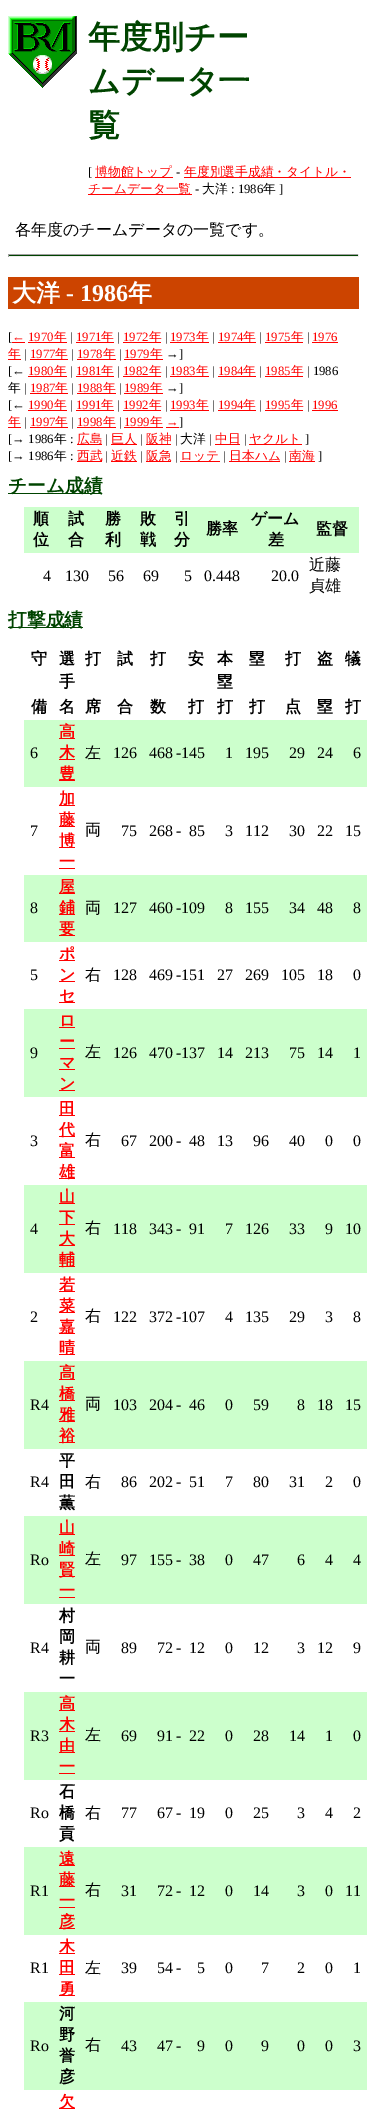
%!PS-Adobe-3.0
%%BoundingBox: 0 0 367 2123
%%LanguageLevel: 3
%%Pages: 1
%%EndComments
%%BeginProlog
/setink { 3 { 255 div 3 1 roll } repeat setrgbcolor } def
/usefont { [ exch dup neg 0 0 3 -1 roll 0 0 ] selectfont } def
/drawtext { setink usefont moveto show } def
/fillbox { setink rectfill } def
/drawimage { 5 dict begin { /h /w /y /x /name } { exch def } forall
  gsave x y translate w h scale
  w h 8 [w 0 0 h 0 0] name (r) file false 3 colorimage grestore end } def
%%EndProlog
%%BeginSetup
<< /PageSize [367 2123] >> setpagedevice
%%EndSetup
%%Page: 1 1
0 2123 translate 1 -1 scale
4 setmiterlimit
0 0 367 2123 255 255 255 fillbox
(assets/img1.rgb) 8 16 69 72 drawimage
(年度別チー) 88 48 /WenQuanYiZenHei-Bold 32 0 68 0 drawtext
(ムデータ一) 88 92 /WenQuanYiZenHei-Bold 32 0 68 0 drawtext
(覧) 88 136 /WenQuanYiZenHei-Bold 32 0 68 0 drawtext
([) 88 176 /LiberationSerif-Regular 12.75 0 0 0 drawtext
95 177 78 1 255 0 0 fillbox
(博物館トップ) 95 176 /WenQuanYiZenHei-Medium 12.75 255 0 0 drawtext
(-) 176 176 /LiberationSerif-Regular 12.75 0 0 0 drawtext
184 177 167 1 255 0 0 fillbox
(年度別選手成績・タイトル・) 184 176 /WenQuanYiZenHei-Medium 12.75 255 0 0 drawtext
88 194 104 1 255 0 0 fillbox
(チームデータ一覧) 88 193 /WenQuanYiZenHei-Medium 12.75 255 0 0 drawtext
(-) 195 193 /LiberationSerif-Regular 12.75 0 0 0 drawtext
(大洋) 202 193 /WenQuanYiZenHei-Medium 12.75 0 0 0 drawtext
(: 1986) 231 193 /LiberationSerif-Regular 12.75 0 0 0 drawtext
(年) 263 193 /WenQuanYiZenHei-Medium 12.75 0 0 0 drawtext
(]) 279 193 /LiberationSerif-Regular 12.75 0 0 0 drawtext
(各年度のチームデータの一覧です。) 15 235 /WenQuanYiZenHei-Medium 16 0 0 0 drawtext
8 255 351 1 0 68 0 fillbox
8 254 351 1 159 159 159 fillbox
358 254 1 3 238 238 238 fillbox
8 256 351 1 238 238 238 fillbox
8 254 1 3 159 159 159 fillbox
8 277 351 32 204 68 0 fillbox
(大洋) 12 301 /WenQuanYiZenHei-Bold 24 255 255 255 drawtext
(- 1986) 66 301 /LiberationSerif-Bold 24 255 255 255 drawtext
(年) 128 301 /WenQuanYiZenHei-Bold 24 255 255 255 drawtext
([) 8 341 /LiberationSerif-Regular 12.75 0 0 0 drawtext
(← 1970) 12 341 /LiberationSerif-Regular 12.75 255 0 0 drawtext
12 342 13 1 255 0 0 fillbox
28 342 39 1 255 0 0 fillbox
(年) 54 341 /WenQuanYiZenHei-Medium 12.75 255 0 0 drawtext
(|) 70 341 /LiberationSerif-Regular 12.75 0 0 0 drawtext
(1971) 76 341 /LiberationSerif-Regular 12.75 255 0 0 drawtext
76 342 38 1 255 0 0 fillbox
(年) 101 341 /WenQuanYiZenHei-Medium 12.75 255 0 0 drawtext
(|) 117 341 /LiberationSerif-Regular 12.75 0 0 0 drawtext
(1972) 123 341 /LiberationSerif-Regular 12.75 255 0 0 drawtext
123 342 38 1 255 0 0 fillbox
(年) 149 341 /WenQuanYiZenHei-Medium 12.75 255 0 0 drawtext
(|) 165 341 /LiberationSerif-Regular 12.75 0 0 0 drawtext
(1973) 170 341 /LiberationSerif-Regular 12.75 255 0 0 drawtext
170 342 39 1 255 0 0 fillbox
(年) 196 341 /WenQuanYiZenHei-Medium 12.75 255 0 0 drawtext
(|) 212 341 /LiberationSerif-Regular 12.75 0 0 0 drawtext
(1974) 218 341 /LiberationSerif-Regular 12.75 255 0 0 drawtext
218 342 38 1 255 0 0 fillbox
(年) 243 341 /WenQuanYiZenHei-Medium 12.75 255 0 0 drawtext
(|) 259 341 /LiberationSerif-Regular 12.75 0 0 0 drawtext
(1975) 265 341 /LiberationSerif-Regular 12.75 255 0 0 drawtext
265 342 38 1 255 0 0 fillbox
(年) 291 341 /WenQuanYiZenHei-Medium 12.75 255 0 0 drawtext
(|) 307 341 /LiberationSerif-Regular 12.75 0 0 0 drawtext
(1976) 312 341 /LiberationSerif-Regular 12.75 255 0 0 drawtext
312 342 26 1 255 0 0 fillbox
8 359 13 1 255 0 0 fillbox
(年) 8 358 /WenQuanYiZenHei-Medium 12.75 255 0 0 drawtext
(|) 24 358 /LiberationSerif-Regular 12.75 0 0 0 drawtext
(1977) 30 358 /LiberationSerif-Regular 12.75 255 0 0 drawtext
30 359 38 1 255 0 0 fillbox
(年) 55 358 /WenQuanYiZenHei-Medium 12.75 255 0 0 drawtext
(|) 71 358 /LiberationSerif-Regular 12.75 0 0 0 drawtext
(1978) 77 358 /LiberationSerif-Regular 12.75 255 0 0 drawtext
77 359 39 1 255 0 0 fillbox
(年) 103 358 /WenQuanYiZenHei-Medium 12.75 255 0 0 drawtext
(|) 119 358 /LiberationSerif-Regular 12.75 0 0 0 drawtext
(1979) 124 358 /LiberationSerif-Regular 12.75 255 0 0 drawtext
124 359 39 1 255 0 0 fillbox
(年) 150 358 /WenQuanYiZenHei-Medium 12.75 255 0 0 drawtext
(→]) 166 358 /LiberationSerif-Regular 12.75 0 0 0 drawtext
([←) 8 375 /LiberationSerif-Regular 12.75 0 0 0 drawtext
(1980) 28 375 /LiberationSerif-Regular 12.75 255 0 0 drawtext
28 376 39 1 255 0 0 fillbox
(年) 54 375 /WenQuanYiZenHei-Medium 12.75 255 0 0 drawtext
(|) 70 375 /LiberationSerif-Regular 12.75 0 0 0 drawtext
(1981) 76 375 /LiberationSerif-Regular 12.75 255 0 0 drawtext
76 376 38 1 255 0 0 fillbox
(年) 101 375 /WenQuanYiZenHei-Medium 12.75 255 0 0 drawtext
(|) 117 375 /LiberationSerif-Regular 12.75 0 0 0 drawtext
(1982) 123 375 /LiberationSerif-Regular 12.75 255 0 0 drawtext
123 376 38 1 255 0 0 fillbox
(年) 149 375 /WenQuanYiZenHei-Medium 12.75 255 0 0 drawtext
(|) 165 375 /LiberationSerif-Regular 12.75 0 0 0 drawtext
(1983) 170 375 /LiberationSerif-Regular 12.75 255 0 0 drawtext
170 376 39 1 255 0 0 fillbox
(年) 196 375 /WenQuanYiZenHei-Medium 12.75 255 0 0 drawtext
(|) 212 375 /LiberationSerif-Regular 12.75 0 0 0 drawtext
(1984) 218 375 /LiberationSerif-Regular 12.75 255 0 0 drawtext
218 376 38 1 255 0 0 fillbox
(年) 243 375 /WenQuanYiZenHei-Medium 12.75 255 0 0 drawtext
(|) 259 375 /LiberationSerif-Regular 12.75 0 0 0 drawtext
(1985) 265 375 /LiberationSerif-Regular 12.75 255 0 0 drawtext
265 376 38 1 255 0 0 fillbox
(年) 291 375 /WenQuanYiZenHei-Medium 12.75 255 0 0 drawtext
(| 1986) 307 375 /LiberationSerif-Regular 12.75 0 0 0 drawtext
(年) 8 392 /WenQuanYiZenHei-Medium 12.75 0 0 0 drawtext
(|) 24 392 /LiberationSerif-Regular 12.75 0 0 0 drawtext
(1987) 30 392 /LiberationSerif-Regular 12.75 255 0 0 drawtext
30 393 38 1 255 0 0 fillbox
(年) 55 392 /WenQuanYiZenHei-Medium 12.75 255 0 0 drawtext
(|) 71 392 /LiberationSerif-Regular 12.75 0 0 0 drawtext
(1988) 77 392 /LiberationSerif-Regular 12.75 255 0 0 drawtext
77 393 39 1 255 0 0 fillbox
(年) 103 392 /WenQuanYiZenHei-Medium 12.75 255 0 0 drawtext
(|) 119 392 /LiberationSerif-Regular 12.75 0 0 0 drawtext
(1989) 124 392 /LiberationSerif-Regular 12.75 255 0 0 drawtext
124 393 39 1 255 0 0 fillbox
(年) 150 392 /WenQuanYiZenHei-Medium 12.75 255 0 0 drawtext
(→]) 166 392 /LiberationSerif-Regular 12.75 0 0 0 drawtext
([←) 8 409 /LiberationSerif-Regular 12.75 0 0 0 drawtext
(1990) 28 409 /LiberationSerif-Regular 12.75 255 0 0 drawtext
28 410 39 1 255 0 0 fillbox
(年) 54 409 /WenQuanYiZenHei-Medium 12.75 255 0 0 drawtext
(|) 70 409 /LiberationSerif-Regular 12.75 0 0 0 drawtext
(1991) 76 409 /LiberationSerif-Regular 12.75 255 0 0 drawtext
76 410 38 1 255 0 0 fillbox
(年) 101 409 /WenQuanYiZenHei-Medium 12.75 255 0 0 drawtext
(|) 117 409 /LiberationSerif-Regular 12.75 0 0 0 drawtext
(1992) 123 409 /LiberationSerif-Regular 12.75 255 0 0 drawtext
123 410 38 1 255 0 0 fillbox
(年) 149 409 /WenQuanYiZenHei-Medium 12.75 255 0 0 drawtext
(|) 165 409 /LiberationSerif-Regular 12.75 0 0 0 drawtext
(1993) 170 409 /LiberationSerif-Regular 12.75 255 0 0 drawtext
170 410 39 1 255 0 0 fillbox
(年) 196 409 /WenQuanYiZenHei-Medium 12.75 255 0 0 drawtext
(|) 212 409 /LiberationSerif-Regular 12.75 0 0 0 drawtext
(1994) 218 409 /LiberationSerif-Regular 12.75 255 0 0 drawtext
218 410 38 1 255 0 0 fillbox
(年) 243 409 /WenQuanYiZenHei-Medium 12.75 255 0 0 drawtext
(|) 259 409 /LiberationSerif-Regular 12.75 0 0 0 drawtext
(1995) 265 409 /LiberationSerif-Regular 12.75 255 0 0 drawtext
265 410 38 1 255 0 0 fillbox
(年) 291 409 /WenQuanYiZenHei-Medium 12.75 255 0 0 drawtext
(|) 307 409 /LiberationSerif-Regular 12.75 0 0 0 drawtext
(1996) 312 409 /LiberationSerif-Regular 12.75 255 0 0 drawtext
312 410 26 1 255 0 0 fillbox
8 427 13 1 255 0 0 fillbox
(年) 8 426 /WenQuanYiZenHei-Medium 12.75 255 0 0 drawtext
(|) 24 426 /LiberationSerif-Regular 12.75 0 0 0 drawtext
(1997) 30 426 /LiberationSerif-Regular 12.75 255 0 0 drawtext
30 427 38 1 255 0 0 fillbox
(年) 55 426 /WenQuanYiZenHei-Medium 12.75 255 0 0 drawtext
(|) 71 426 /LiberationSerif-Regular 12.75 0 0 0 drawtext
(1998) 77 426 /LiberationSerif-Regular 12.75 255 0 0 drawtext
77 427 39 1 255 0 0 fillbox
(年) 103 426 /WenQuanYiZenHei-Medium 12.75 255 0 0 drawtext
(|) 119 426 /LiberationSerif-Regular 12.75 0 0 0 drawtext
(1999) 124 426 /LiberationSerif-Regular 12.75 255 0 0 drawtext
124 427 39 1 255 0 0 fillbox
(年) 150 426 /WenQuanYiZenHei-Medium 12.75 255 0 0 drawtext
(→) 166 426 /LiberationSerif-Regular 12.75 255 0 0 drawtext
166 427 13 1 255 0 0 fillbox
(]) 179 426 /LiberationSerif-Regular 12.75 0 0 0 drawtext
([→ 1986) 8 443 /LiberationSerif-Regular 12.75 0 0 0 drawtext
(年) 54 443 /WenQuanYiZenHei-Medium 12.75 0 0 0 drawtext
(:) 70 443 /LiberationSerif-Regular 12.75 0 0 0 drawtext
77 444 25 1 255 0 0 fillbox
(広島) 77 443 /WenQuanYiZenHei-Medium 12.75 255 0 0 drawtext
(|) 105 443 /LiberationSerif-Regular 12.75 0 0 0 drawtext
111 444 26 1 255 0 0 fillbox
(巨人) 111 443 /WenQuanYiZenHei-Medium 12.75 255 0 0 drawtext
(|) 140 443 /LiberationSerif-Regular 12.75 0 0 0 drawtext
146 444 25 1 255 0 0 fillbox
(阪神) 146 443 /WenQuanYiZenHei-Medium 12.75 255 0 0 drawtext
(|) 175 443 /LiberationSerif-Regular 12.75 0 0 0 drawtext
(大洋) 180 443 /WenQuanYiZenHei-Medium 12.75 0 0 0 drawtext
(|) 209 443 /LiberationSerif-Regular 12.75 0 0 0 drawtext
215 444 25 1 255 0 0 fillbox
(中日) 215 443 /WenQuanYiZenHei-Medium 12.75 255 0 0 drawtext
(|) 244 443 /LiberationSerif-Regular 12.75 0 0 0 drawtext
249 444 53 1 255 0 0 fillbox
(ヤクルト) 249 443 /WenQuanYiZenHei-Medium 12.75 255 0 0 drawtext
(]) 305 443 /LiberationSerif-Regular 12.75 0 0 0 drawtext
([→ 1986) 8 460 /LiberationSerif-Regular 12.75 0 0 0 drawtext
(年) 54 460 /WenQuanYiZenHei-Medium 12.75 0 0 0 drawtext
(:) 70 460 /LiberationSerif-Regular 12.75 0 0 0 drawtext
77 461 25 1 255 0 0 fillbox
(西武) 77 460 /WenQuanYiZenHei-Medium 12.75 255 0 0 drawtext
(|) 105 460 /LiberationSerif-Regular 12.75 0 0 0 drawtext
111 461 26 1 255 0 0 fillbox
(近鉄) 111 460 /WenQuanYiZenHei-Medium 12.75 255 0 0 drawtext
(|) 140 460 /LiberationSerif-Regular 12.75 0 0 0 drawtext
146 461 25 1 255 0 0 fillbox
(阪急) 146 460 /WenQuanYiZenHei-Medium 12.75 255 0 0 drawtext
(|) 175 460 /LiberationSerif-Regular 12.75 0 0 0 drawtext
180 461 40 1 255 0 0 fillbox
(ロッテ) 180 460 /WenQuanYiZenHei-Medium 12.75 255 0 0 drawtext
(|) 223 460 /LiberationSerif-Regular 12.75 0 0 0 drawtext
229 461 51 1 255 0 0 fillbox
(日本ハム) 229 460 /WenQuanYiZenHei-Medium 12.75 255 0 0 drawtext
(|) 284 460 /LiberationSerif-Regular 12.75 0 0 0 drawtext
289 461 26 1 255 0 0 fillbox
(南海) 289 460 /WenQuanYiZenHei-Medium 12.75 255 0 0 drawtext
(]) 318 460 /LiberationSerif-Regular 12.75 0 0 0 drawtext
8 493 94 1 0 68 0 fillbox
(チーム成績) 8 492 /WenQuanYiZenHei-Bold 18.75 0 68 0 drawtext
24 507 335 46 204 255 204 fillbox
(順) 33 524 /WenQuanYiZenHei-Bold 16 0 0 0 drawtext
(位) 33 545 /WenQuanYiZenHei-Bold 16 0 0 0 drawtext
(試) 68 524 /WenQuanYiZenHei-Bold 16 0 0 0 drawtext
(合) 68 545 /WenQuanYiZenHei-Bold 16 0 0 0 drawtext
(勝) 105 524 /WenQuanYiZenHei-Bold 16 0 0 0 drawtext
(利) 105 545 /WenQuanYiZenHei-Bold 16 0 0 0 drawtext
(敗) 140 524 /WenQuanYiZenHei-Bold 16 0 0 0 drawtext
(戦) 140 545 /WenQuanYiZenHei-Bold 16 0 0 0 drawtext
(引) 174 524 /WenQuanYiZenHei-Bold 16 0 0 0 drawtext
(分) 174 545 /WenQuanYiZenHei-Bold 16 0 0 0 drawtext
(勝率) 206 534 /WenQuanYiZenHei-Bold 16 0 0 0 drawtext
(ゲーム) 251 524 /WenQuanYiZenHei-Bold 16 0 0 0 drawtext
(差) 268 545 /WenQuanYiZenHei-Bold 16 0 0 0 drawtext
(監督) 316 534 /WenQuanYiZenHei-Bold 16 0 0 0 drawtext
(4) 43 581 /LiberationSerif-Regular 16 0 0 0 drawtext
(130) 65 581 /LiberationSerif-Regular 16 0 0 0 drawtext
(56) 108 581 /LiberationSerif-Regular 16 0 0 0 drawtext
(69) 143 581 /LiberationSerif-Regular 16 0 0 0 drawtext
(5) 184 581 /LiberationSerif-Regular 16 0 0 0 drawtext
(0.448) 204 581 /LiberationSerif-Regular 16 0 0 0 drawtext
(20.0) 271 581 /LiberationSerif-Regular 16 0 0 0 drawtext
(近藤) 309 570 /WenQuanYiZenHei-Medium 16 0 0 0 drawtext
(貞雄) 309 591 /WenQuanYiZenHei-Medium 16 0 0 0 drawtext
8 627 75 1 0 68 0 fillbox
(打撃成績) 8 626 /WenQuanYiZenHei-Bold 18.75 0 68 0 drawtext
(守) 31 664 /WenQuanYiZenHei-Bold 16 0 0 0 drawtext
(選) 59 664 /WenQuanYiZenHei-Bold 16 0 0 0 drawtext
(打) 85 664 /WenQuanYiZenHei-Bold 16 0 0 0 drawtext
(試) 117 664 /WenQuanYiZenHei-Bold 16 0 0 0 drawtext
(打) 150 664 /WenQuanYiZenHei-Bold 16 0 0 0 drawtext
(安) 188 664 /WenQuanYiZenHei-Bold 16 0 0 0 drawtext
(本) 217 664 /WenQuanYiZenHei-Bold 16 0 0 0 drawtext
(塁) 249 664 /WenQuanYiZenHei-Bold 16 0 0 0 drawtext
(打) 285 664 /WenQuanYiZenHei-Bold 16 0 0 0 drawtext
(盗) 317 664 /WenQuanYiZenHei-Bold 16 0 0 0 drawtext
(犠) 345 664 /WenQuanYiZenHei-Bold 16 0 0 0 drawtext
(手) 59 687 /WenQuanYiZenHei-Bold 16 0 0 0 drawtext
(塁) 217 687 /WenQuanYiZenHei-Bold 16 0 0 0 drawtext
(備) 31 712 /WenQuanYiZenHei-Bold 16 0 0 0 drawtext
(名) 59 712 /WenQuanYiZenHei-Bold 16 0 0 0 drawtext
(席) 85 712 /WenQuanYiZenHei-Bold 16 0 0 0 drawtext
(合) 117 712 /WenQuanYiZenHei-Bold 16 0 0 0 drawtext
(数) 150 712 /WenQuanYiZenHei-Bold 16 0 0 0 drawtext
(打) 188 712 /WenQuanYiZenHei-Bold 16 0 0 0 drawtext
(打) 217 712 /WenQuanYiZenHei-Bold 16 0 0 0 drawtext
(打) 249 712 /WenQuanYiZenHei-Bold 16 0 0 0 drawtext
(点) 285 712 /WenQuanYiZenHei-Bold 16 0 0 0 drawtext
(塁) 317 712 /WenQuanYiZenHei-Bold 16 0 0 0 drawtext
(打) 345 712 /WenQuanYiZenHei-Bold 16 0 0 0 drawtext
24 720 343 67 204 255 204 fillbox
(6) 30 758 /LiberationSerif-Regular 16 0 0 0 drawtext
59 738 16 1 255 0 0 fillbox
(高) 59 737 /WenQuanYiZenHei-Bold 16 255 0 0 drawtext
59 759 16 1 255 0 0 fillbox
(木) 59 758 /WenQuanYiZenHei-Bold 16 255 0 0 drawtext
59 780 16 1 255 0 0 fillbox
(豊) 59 779 /WenQuanYiZenHei-Bold 16 255 0 0 drawtext
(左) 85 758 /WenQuanYiZenHei-Medium 16 0 0 0 drawtext
(126) 113 758 /LiberationSerif-Regular 16 0 0 0 drawtext
(468) 149 758 /LiberationSerif-Regular 16 0 0 0 drawtext
(-145) 176 758 /LiberationSerif-Regular 16 0 0 0 drawtext
(1) 225 758 /LiberationSerif-Regular 16 0 0 0 drawtext
(195) 245 758 /LiberationSerif-Regular 16 0 0 0 drawtext
(29) 289 758 /LiberationSerif-Regular 16 0 0 0 drawtext
(24) 317 758 /LiberationSerif-Regular 16 0 0 0 drawtext
(6) 353 758 /LiberationSerif-Regular 16 0 0 0 drawtext
(7) 30 836 /LiberationSerif-Regular 16 0 0 0 drawtext
59 805 16 1 255 0 0 fillbox
(加) 59 804 /WenQuanYiZenHei-Bold 16 255 0 0 drawtext
59 826 16 1 255 0 0 fillbox
(藤) 59 825 /WenQuanYiZenHei-Bold 16 255 0 0 drawtext
59 847 16 1 255 0 0 fillbox
(博) 59 846 /WenQuanYiZenHei-Bold 16 255 0 0 drawtext
(一) 59 867 /WenQuanYiZenHei-Bold 16 255 0 0 drawtext
59 868 16 1 255 0 0 fillbox
(両) 85 835 /WenQuanYiZenHei-Medium 16 0 0 0 drawtext
(75) 121 836 /LiberationSerif-Regular 16 0 0 0 drawtext
(268) 149 836 /LiberationSerif-Regular 16 0 0 0 drawtext
(-) 176 836 /LiberationSerif-Regular 16 0 0 0 drawtext
(85) 189 836 /LiberationSerif-Regular 16 0 0 0 drawtext
(3) 225 836 /LiberationSerif-Regular 16 0 0 0 drawtext
(112) 245 836 /LiberationSerif-Regular 16 0 0 0 drawtext
(30) 289 836 /LiberationSerif-Regular 16 0 0 0 drawtext
(22) 317 836 /LiberationSerif-Regular 16 0 0 0 drawtext
(15) 345 836 /LiberationSerif-Regular 16 0 0 0 drawtext
24 875 343 67 204 255 204 fillbox
(8) 30 913 /LiberationSerif-Regular 16 0 0 0 drawtext
59 893 16 1 255 0 0 fillbox
(屋) 59 892 /WenQuanYiZenHei-Bold 16 255 0 0 drawtext
59 914 16 1 255 0 0 fillbox
(鋪) 59 913 /WenQuanYiZenHei-Bold 16 255 0 0 drawtext
59 935 16 1 255 0 0 fillbox
(要) 59 934 /WenQuanYiZenHei-Bold 16 255 0 0 drawtext
(両) 85 913 /WenQuanYiZenHei-Medium 16 0 0 0 drawtext
(127) 113 913 /LiberationSerif-Regular 16 0 0 0 drawtext
(460) 149 913 /LiberationSerif-Regular 16 0 0 0 drawtext
(-109) 176 913 /LiberationSerif-Regular 16 0 0 0 drawtext
(8) 225 913 /LiberationSerif-Regular 16 0 0 0 drawtext
(155) 245 913 /LiberationSerif-Regular 16 0 0 0 drawtext
(34) 289 913 /LiberationSerif-Regular 16 0 0 0 drawtext
(48) 317 913 /LiberationSerif-Regular 16 0 0 0 drawtext
(8) 353 913 /LiberationSerif-Regular 16 0 0 0 drawtext
(5) 30 980 /LiberationSerif-Regular 16 0 0 0 drawtext
59 960 16 1 255 0 0 fillbox
(ポ) 59 959 /WenQuanYiZenHei-Bold 16 255 0 0 drawtext
59 981 16 1 255 0 0 fillbox
(ン) 59 980 /WenQuanYiZenHei-Bold 16 255 0 0 drawtext
59 1002 16 1 255 0 0 fillbox
(セ) 59 1001 /WenQuanYiZenHei-Bold 16 255 0 0 drawtext
(右) 85 980 /WenQuanYiZenHei-Medium 16 0 0 0 drawtext
(128) 113 980 /LiberationSerif-Regular 16 0 0 0 drawtext
(469) 149 980 /LiberationSerif-Regular 16 0 0 0 drawtext
(-151) 176 980 /LiberationSerif-Regular 16 0 0 0 drawtext
(27) 217 980 /LiberationSerif-Regular 16 0 0 0 drawtext
(269) 245 980 /LiberationSerif-Regular 16 0 0 0 drawtext
(105) 281 980 /LiberationSerif-Regular 16 0 0 0 drawtext
(18) 317 980 /LiberationSerif-Regular 16 0 0 0 drawtext
(0) 353 980 /LiberationSerif-Regular 16 0 0 0 drawtext
24 1009 343 88 204 255 204 fillbox
(9) 30 1058 /LiberationSerif-Regular 16 0 0 0 drawtext
(ロ) 59 1026 /WenQuanYiZenHei-Bold 16 255 0 0 drawtext
59 1027 16 1 255 0 0 fillbox
(ー) 59 1047 /WenQuanYiZenHei-Bold 16 255 0 0 drawtext
59 1048 16 1 255 0 0 fillbox
(マ) 59 1068 /WenQuanYiZenHei-Bold 16 255 0 0 drawtext
59 1069 16 1 255 0 0 fillbox
59 1090 16 1 255 0 0 fillbox
(ン) 59 1089 /WenQuanYiZenHei-Bold 16 255 0 0 drawtext
(左) 85 1057 /WenQuanYiZenHei-Medium 16 0 0 0 drawtext
(126) 113 1058 /LiberationSerif-Regular 16 0 0 0 drawtext
(470) 149 1058 /LiberationSerif-Regular 16 0 0 0 drawtext
(-137) 176 1058 /LiberationSerif-Regular 16 0 0 0 drawtext
(14) 217 1058 /LiberationSerif-Regular 16 0 0 0 drawtext
(213) 245 1058 /LiberationSerif-Regular 16 0 0 0 drawtext
(75) 289 1058 /LiberationSerif-Regular 16 0 0 0 drawtext
(14) 317 1058 /LiberationSerif-Regular 16 0 0 0 drawtext
(1) 353 1058 /LiberationSerif-Regular 16 0 0 0 drawtext
(3) 30 1146 /LiberationSerif-Regular 16 0 0 0 drawtext
59 1115 16 1 255 0 0 fillbox
(田) 59 1114 /WenQuanYiZenHei-Bold 16 255 0 0 drawtext
59 1136 16 1 255 0 0 fillbox
(代) 59 1135 /WenQuanYiZenHei-Bold 16 255 0 0 drawtext
59 1157 16 1 255 0 0 fillbox
(富) 59 1156 /WenQuanYiZenHei-Bold 16 255 0 0 drawtext
59 1178 16 1 255 0 0 fillbox
(雄) 59 1177 /WenQuanYiZenHei-Bold 16 255 0 0 drawtext
(右) 85 1145 /WenQuanYiZenHei-Medium 16 0 0 0 drawtext
(67) 121 1146 /LiberationSerif-Regular 16 0 0 0 drawtext
(200) 149 1146 /LiberationSerif-Regular 16 0 0 0 drawtext
(-) 176 1146 /LiberationSerif-Regular 16 0 0 0 drawtext
(48) 189 1146 /LiberationSerif-Regular 16 0 0 0 drawtext
(13) 217 1146 /LiberationSerif-Regular 16 0 0 0 drawtext
(96) 253 1146 /LiberationSerif-Regular 16 0 0 0 drawtext
(40) 289 1146 /LiberationSerif-Regular 16 0 0 0 drawtext
(0) 325 1146 /LiberationSerif-Regular 16 0 0 0 drawtext
(0) 353 1146 /LiberationSerif-Regular 16 0 0 0 drawtext
24 1185 343 88 204 255 204 fillbox
(4) 30 1234 /LiberationSerif-Regular 16 0 0 0 drawtext
59 1203 16 1 255 0 0 fillbox
(山) 59 1202 /WenQuanYiZenHei-Bold 16 255 0 0 drawtext
59 1224 16 1 255 0 0 fillbox
(下) 59 1223 /WenQuanYiZenHei-Bold 16 255 0 0 drawtext
59 1245 16 1 255 0 0 fillbox
(大) 59 1244 /WenQuanYiZenHei-Bold 16 255 0 0 drawtext
59 1266 16 1 255 0 0 fillbox
(輔) 59 1265 /WenQuanYiZenHei-Bold 16 255 0 0 drawtext
(右) 85 1233 /WenQuanYiZenHei-Medium 16 0 0 0 drawtext
(118) 113 1234 /LiberationSerif-Regular 16 0 0 0 drawtext
(343) 149 1234 /LiberationSerif-Regular 16 0 0 0 drawtext
(-) 176 1234 /LiberationSerif-Regular 16 0 0 0 drawtext
(91) 189 1234 /LiberationSerif-Regular 16 0 0 0 drawtext
(7) 225 1234 /LiberationSerif-Regular 16 0 0 0 drawtext
(126) 245 1234 /LiberationSerif-Regular 16 0 0 0 drawtext
(33) 289 1234 /LiberationSerif-Regular 16 0 0 0 drawtext
(9) 325 1234 /LiberationSerif-Regular 16 0 0 0 drawtext
(10) 345 1234 /LiberationSerif-Regular 16 0 0 0 drawtext
(2) 30 1322 /LiberationSerif-Regular 16 0 0 0 drawtext
59 1291 16 1 255 0 0 fillbox
(若) 59 1290 /WenQuanYiZenHei-Bold 16 255 0 0 drawtext
59 1312 16 1 255 0 0 fillbox
(菜) 59 1311 /WenQuanYiZenHei-Bold 16 255 0 0 drawtext
59 1333 16 1 255 0 0 fillbox
(嘉) 59 1332 /WenQuanYiZenHei-Bold 16 255 0 0 drawtext
59 1354 16 1 255 0 0 fillbox
(晴) 59 1353 /WenQuanYiZenHei-Bold 16 255 0 0 drawtext
(右) 85 1321 /WenQuanYiZenHei-Medium 16 0 0 0 drawtext
(122) 113 1322 /LiberationSerif-Regular 16 0 0 0 drawtext
(372) 149 1322 /LiberationSerif-Regular 16 0 0 0 drawtext
(-107) 176 1322 /LiberationSerif-Regular 16 0 0 0 drawtext
(4) 225 1322 /LiberationSerif-Regular 16 0 0 0 drawtext
(135) 245 1322 /LiberationSerif-Regular 16 0 0 0 drawtext
(29) 289 1322 /LiberationSerif-Regular 16 0 0 0 drawtext
(3) 325 1322 /LiberationSerif-Regular 16 0 0 0 drawtext
(8) 353 1322 /LiberationSerif-Regular 16 0 0 0 drawtext
24 1361 343 88 204 255 204 fillbox
(R4) 30 1410 /LiberationSerif-Regular 16 0 0 0 drawtext
59 1379 16 1 255 0 0 fillbox
(高) 59 1378 /WenQuanYiZenHei-Bold 16 255 0 0 drawtext
59 1400 16 1 255 0 0 fillbox
(橋) 59 1399 /WenQuanYiZenHei-Bold 16 255 0 0 drawtext
59 1421 16 1 255 0 0 fillbox
(雅) 59 1420 /WenQuanYiZenHei-Bold 16 255 0 0 drawtext
59 1442 16 1 255 0 0 fillbox
(裕) 59 1441 /WenQuanYiZenHei-Bold 16 255 0 0 drawtext
(両) 85 1409 /WenQuanYiZenHei-Medium 16 0 0 0 drawtext
(103) 113 1410 /LiberationSerif-Regular 16 0 0 0 drawtext
(204) 149 1410 /LiberationSerif-Regular 16 0 0 0 drawtext
(-) 176 1410 /LiberationSerif-Regular 16 0 0 0 drawtext
(46) 189 1410 /LiberationSerif-Regular 16 0 0 0 drawtext
(0) 225 1410 /LiberationSerif-Regular 16 0 0 0 drawtext
(59) 253 1410 /LiberationSerif-Regular 16 0 0 0 drawtext
(8) 297 1410 /LiberationSerif-Regular 16 0 0 0 drawtext
(18) 317 1410 /LiberationSerif-Regular 16 0 0 0 drawtext
(15) 345 1410 /LiberationSerif-Regular 16 0 0 0 drawtext
(R4) 30 1487 /LiberationSerif-Regular 16 0 0 0 drawtext
(平) 59 1466 /WenQuanYiZenHei-Bold 16 0 0 0 drawtext
(田) 59 1487 /WenQuanYiZenHei-Bold 16 0 0 0 drawtext
(薫) 59 1508 /WenQuanYiZenHei-Bold 16 0 0 0 drawtext
(右) 85 1487 /WenQuanYiZenHei-Medium 16 0 0 0 drawtext
(86) 121 1487 /LiberationSerif-Regular 16 0 0 0 drawtext
(202) 149 1487 /LiberationSerif-Regular 16 0 0 0 drawtext
(-) 176 1487 /LiberationSerif-Regular 16 0 0 0 drawtext
(51) 189 1487 /LiberationSerif-Regular 16 0 0 0 drawtext
(7) 225 1487 /LiberationSerif-Regular 16 0 0 0 drawtext
(80) 253 1487 /LiberationSerif-Regular 16 0 0 0 drawtext
(31) 289 1487 /LiberationSerif-Regular 16 0 0 0 drawtext
(2) 325 1487 /LiberationSerif-Regular 16 0 0 0 drawtext
(0) 353 1487 /LiberationSerif-Regular 16 0 0 0 drawtext
24 1516 343 88 204 255 204 fillbox
(Ro) 30 1565 /LiberationSerif-Regular 16 0 0 0 drawtext
59 1534 16 1 255 0 0 fillbox
(山) 59 1533 /WenQuanYiZenHei-Bold 16 255 0 0 drawtext
59 1555 16 1 255 0 0 fillbox
(崎) 59 1554 /WenQuanYiZenHei-Bold 16 255 0 0 drawtext
59 1576 16 1 255 0 0 fillbox
(賢) 59 1575 /WenQuanYiZenHei-Bold 16 255 0 0 drawtext
(一) 59 1596 /WenQuanYiZenHei-Bold 16 255 0 0 drawtext
59 1597 16 1 255 0 0 fillbox
(左) 85 1564 /WenQuanYiZenHei-Medium 16 0 0 0 drawtext
(97) 121 1565 /LiberationSerif-Regular 16 0 0 0 drawtext
(155) 149 1565 /LiberationSerif-Regular 16 0 0 0 drawtext
(-) 176 1565 /LiberationSerif-Regular 16 0 0 0 drawtext
(38) 189 1565 /LiberationSerif-Regular 16 0 0 0 drawtext
(0) 225 1565 /LiberationSerif-Regular 16 0 0 0 drawtext
(47) 253 1565 /LiberationSerif-Regular 16 0 0 0 drawtext
(6) 297 1565 /LiberationSerif-Regular 16 0 0 0 drawtext
(4) 325 1565 /LiberationSerif-Regular 16 0 0 0 drawtext
(4) 353 1565 /LiberationSerif-Regular 16 0 0 0 drawtext
(R4) 30 1653 /LiberationSerif-Regular 16 0 0 0 drawtext
(村) 59 1621 /WenQuanYiZenHei-Bold 16 0 0 0 drawtext
(岡) 59 1642 /WenQuanYiZenHei-Bold 16 0 0 0 drawtext
(耕) 59 1663 /WenQuanYiZenHei-Bold 16 0 0 0 drawtext
(一) 59 1684 /WenQuanYiZenHei-Bold 16 0 0 0 drawtext
(両) 85 1652 /WenQuanYiZenHei-Medium 16 0 0 0 drawtext
(89) 121 1653 /LiberationSerif-Regular 16 0 0 0 drawtext
(72) 157 1653 /LiberationSerif-Regular 16 0 0 0 drawtext
(-) 176 1653 /LiberationSerif-Regular 16 0 0 0 drawtext
(12) 189 1653 /LiberationSerif-Regular 16 0 0 0 drawtext
(0) 225 1653 /LiberationSerif-Regular 16 0 0 0 drawtext
(12) 253 1653 /LiberationSerif-Regular 16 0 0 0 drawtext
(3) 297 1653 /LiberationSerif-Regular 16 0 0 0 drawtext
(12) 317 1653 /LiberationSerif-Regular 16 0 0 0 drawtext
(9) 353 1653 /LiberationSerif-Regular 16 0 0 0 drawtext
24 1692 343 88 204 255 204 fillbox
(R3) 30 1741 /LiberationSerif-Regular 16 0 0 0 drawtext
59 1710 16 1 255 0 0 fillbox
(高) 59 1709 /WenQuanYiZenHei-Bold 16 255 0 0 drawtext
59 1731 16 1 255 0 0 fillbox
(木) 59 1730 /WenQuanYiZenHei-Bold 16 255 0 0 drawtext
59 1752 16 1 255 0 0 fillbox
(由) 59 1751 /WenQuanYiZenHei-Bold 16 255 0 0 drawtext
(一) 59 1772 /WenQuanYiZenHei-Bold 16 255 0 0 drawtext
59 1773 16 1 255 0 0 fillbox
(左) 85 1740 /WenQuanYiZenHei-Medium 16 0 0 0 drawtext
(69) 121 1741 /LiberationSerif-Regular 16 0 0 0 drawtext
(91) 157 1741 /LiberationSerif-Regular 16 0 0 0 drawtext
(-) 176 1741 /LiberationSerif-Regular 16 0 0 0 drawtext
(22) 189 1741 /LiberationSerif-Regular 16 0 0 0 drawtext
(0) 225 1741 /LiberationSerif-Regular 16 0 0 0 drawtext
(28) 253 1741 /LiberationSerif-Regular 16 0 0 0 drawtext
(14) 289 1741 /LiberationSerif-Regular 16 0 0 0 drawtext
(1) 325 1741 /LiberationSerif-Regular 16 0 0 0 drawtext
(0) 353 1741 /LiberationSerif-Regular 16 0 0 0 drawtext
(Ro) 30 1818 /LiberationSerif-Regular 16 0 0 0 drawtext
(石) 59 1797 /WenQuanYiZenHei-Bold 16 0 0 0 drawtext
(橋) 59 1818 /WenQuanYiZenHei-Bold 16 0 0 0 drawtext
(貢) 59 1839 /WenQuanYiZenHei-Bold 16 0 0 0 drawtext
(右) 85 1818 /WenQuanYiZenHei-Medium 16 0 0 0 drawtext
(77) 121 1818 /LiberationSerif-Regular 16 0 0 0 drawtext
(67) 157 1818 /LiberationSerif-Regular 16 0 0 0 drawtext
(-) 176 1818 /LiberationSerif-Regular 16 0 0 0 drawtext
(19) 189 1818 /LiberationSerif-Regular 16 0 0 0 drawtext
(0) 225 1818 /LiberationSerif-Regular 16 0 0 0 drawtext
(25) 253 1818 /LiberationSerif-Regular 16 0 0 0 drawtext
(3) 297 1818 /LiberationSerif-Regular 16 0 0 0 drawtext
(4) 325 1818 /LiberationSerif-Regular 16 0 0 0 drawtext
(2) 353 1818 /LiberationSerif-Regular 16 0 0 0 drawtext
24 1847 343 88 204 255 204 fillbox
(R1) 30 1896 /LiberationSerif-Regular 16 0 0 0 drawtext
59 1865 16 1 255 0 0 fillbox
(遠) 59 1864 /WenQuanYiZenHei-Bold 16 255 0 0 drawtext
59 1886 16 1 255 0 0 fillbox
(藤) 59 1885 /WenQuanYiZenHei-Bold 16 255 0 0 drawtext
(一) 59 1906 /WenQuanYiZenHei-Bold 16 255 0 0 drawtext
59 1907 16 1 255 0 0 fillbox
59 1928 16 1 255 0 0 fillbox
(彦) 59 1927 /WenQuanYiZenHei-Bold 16 255 0 0 drawtext
(右) 85 1895 /WenQuanYiZenHei-Medium 16 0 0 0 drawtext
(31) 121 1896 /LiberationSerif-Regular 16 0 0 0 drawtext
(72) 157 1896 /LiberationSerif-Regular 16 0 0 0 drawtext
(-) 176 1896 /LiberationSerif-Regular 16 0 0 0 drawtext
(12) 189 1896 /LiberationSerif-Regular 16 0 0 0 drawtext
(0) 225 1896 /LiberationSerif-Regular 16 0 0 0 drawtext
(14) 253 1896 /LiberationSerif-Regular 16 0 0 0 drawtext
(3) 297 1896 /LiberationSerif-Regular 16 0 0 0 drawtext
(0) 325 1896 /LiberationSerif-Regular 16 0 0 0 drawtext
(11) 345 1896 /LiberationSerif-Regular 16 0 0 0 drawtext
(R1) 30 1973 /LiberationSerif-Regular 16 0 0 0 drawtext
59 1953 16 1 255 0 0 fillbox
(木) 59 1952 /WenQuanYiZenHei-Bold 16 255 0 0 drawtext
59 1974 16 1 255 0 0 fillbox
(田) 59 1973 /WenQuanYiZenHei-Bold 16 255 0 0 drawtext
59 1995 16 1 255 0 0 fillbox
(勇) 59 1994 /WenQuanYiZenHei-Bold 16 255 0 0 drawtext
(左) 85 1973 /WenQuanYiZenHei-Medium 16 0 0 0 drawtext
(39) 121 1973 /LiberationSerif-Regular 16 0 0 0 drawtext
(54) 157 1973 /LiberationSerif-Regular 16 0 0 0 drawtext
(-) 176 1973 /LiberationSerif-Regular 16 0 0 0 drawtext
(5) 197 1973 /LiberationSerif-Regular 16 0 0 0 drawtext
(0) 225 1973 /LiberationSerif-Regular 16 0 0 0 drawtext
(7) 261 1973 /LiberationSerif-Regular 16 0 0 0 drawtext
(2) 297 1973 /LiberationSerif-Regular 16 0 0 0 drawtext
(0) 325 1973 /LiberationSerif-Regular 16 0 0 0 drawtext
(1) 353 1973 /LiberationSerif-Regular 16 0 0 0 drawtext
24 2002 343 88 204 255 204 fillbox
(Ro) 30 2051 /LiberationSerif-Regular 16 0 0 0 drawtext
(河) 59 2019 /WenQuanYiZenHei-Bold 16 0 0 0 drawtext
(野) 59 2040 /WenQuanYiZenHei-Bold 16 0 0 0 drawtext
(誉) 59 2061 /WenQuanYiZenHei-Bold 16 0 0 0 drawtext
(彦) 59 2082 /WenQuanYiZenHei-Bold 16 0 0 0 drawtext
(右) 85 2050 /WenQuanYiZenHei-Medium 16 0 0 0 drawtext
(43) 121 2051 /LiberationSerif-Regular 16 0 0 0 drawtext
(47) 157 2051 /LiberationSerif-Regular 16 0 0 0 drawtext
(-) 176 2051 /LiberationSerif-Regular 16 0 0 0 drawtext
(9) 197 2051 /LiberationSerif-Regular 16 0 0 0 drawtext
(0) 225 2051 /LiberationSerif-Regular 16 0 0 0 drawtext
(9) 261 2051 /LiberationSerif-Regular 16 0 0 0 drawtext
(0) 297 2051 /LiberationSerif-Regular 16 0 0 0 drawtext
(0) 325 2051 /LiberationSerif-Regular 16 0 0 0 drawtext
(3) 353 2051 /LiberationSerif-Regular 16 0 0 0 drawtext
59 2108 16 1 255 0 0 fillbox
(欠) 59 2107 /WenQuanYiZenHei-Bold 16 255 0 0 drawtext
showpage
%%EOF
